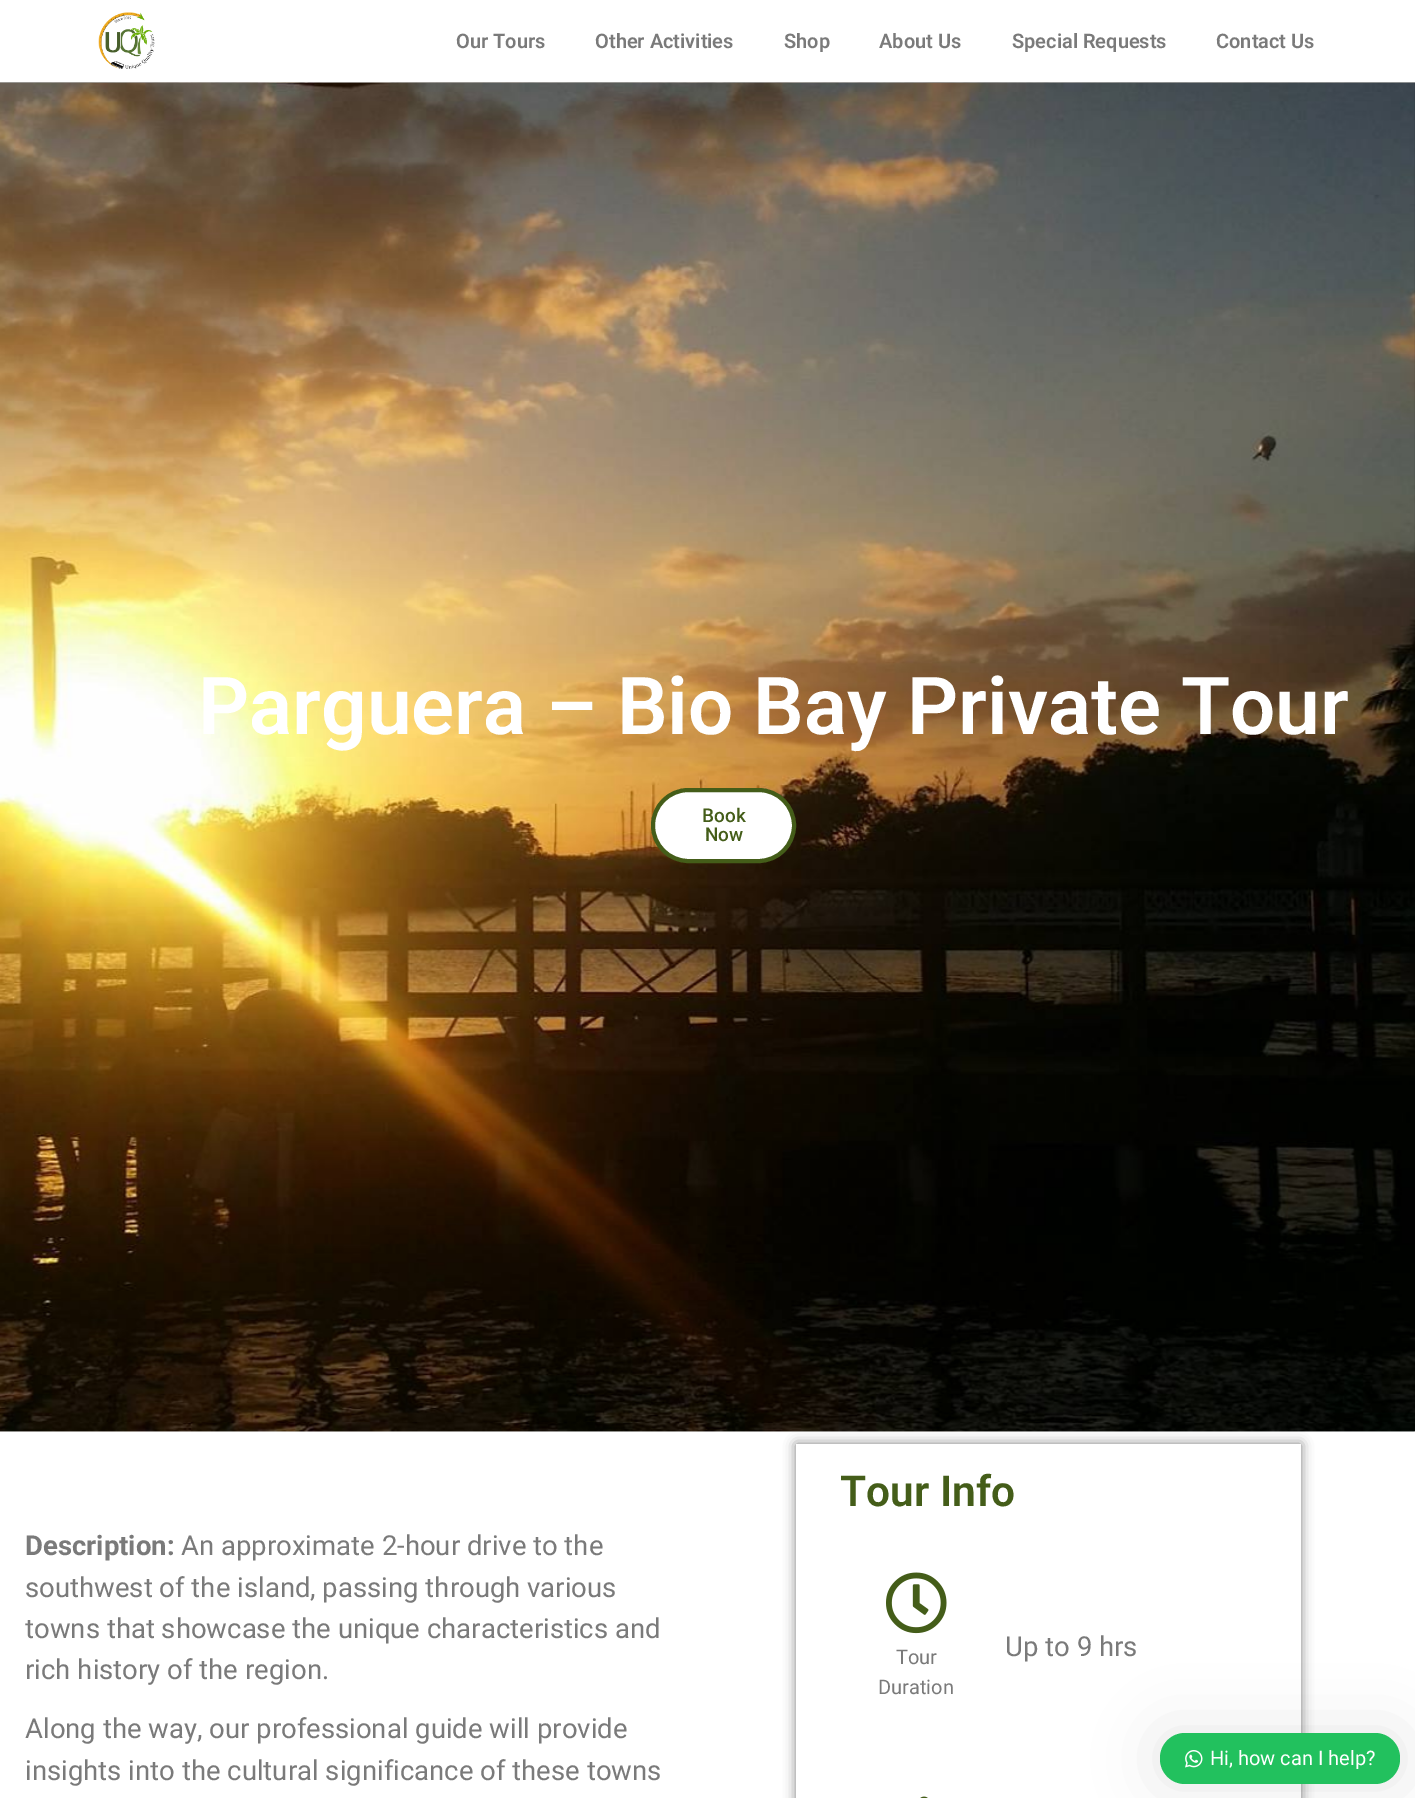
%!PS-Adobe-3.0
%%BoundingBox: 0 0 1415 1798
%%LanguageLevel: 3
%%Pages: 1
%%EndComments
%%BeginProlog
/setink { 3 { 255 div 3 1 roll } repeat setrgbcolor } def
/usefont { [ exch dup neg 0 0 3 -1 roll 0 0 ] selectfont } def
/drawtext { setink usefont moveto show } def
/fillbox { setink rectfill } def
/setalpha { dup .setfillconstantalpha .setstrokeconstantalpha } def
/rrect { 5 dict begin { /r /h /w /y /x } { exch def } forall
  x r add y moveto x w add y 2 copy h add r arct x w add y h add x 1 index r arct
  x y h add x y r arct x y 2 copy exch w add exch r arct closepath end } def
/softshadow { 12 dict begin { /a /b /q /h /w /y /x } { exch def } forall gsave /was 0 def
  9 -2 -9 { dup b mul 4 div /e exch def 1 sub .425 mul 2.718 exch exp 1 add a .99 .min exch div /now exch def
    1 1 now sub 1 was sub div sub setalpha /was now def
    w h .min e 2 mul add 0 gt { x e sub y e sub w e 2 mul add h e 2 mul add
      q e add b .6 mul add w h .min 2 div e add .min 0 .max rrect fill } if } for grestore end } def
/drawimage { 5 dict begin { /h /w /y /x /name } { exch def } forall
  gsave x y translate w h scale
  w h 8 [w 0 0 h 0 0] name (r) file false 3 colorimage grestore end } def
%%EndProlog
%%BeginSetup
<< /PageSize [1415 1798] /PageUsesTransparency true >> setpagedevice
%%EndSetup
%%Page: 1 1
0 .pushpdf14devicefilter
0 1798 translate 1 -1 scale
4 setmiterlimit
0 0 1415 1798 255 255 255 fillbox
(assets/img1.rgb) 98 12 57 57 drawimage
(Our Tours) 456 48 /Roboto-SemiBold 20 122 122 122 drawtext
(Other Activities) 595 48 /Roboto-SemiBold 20 122 122 122 drawtext
(Shop) 784 48 /Roboto-SemiBold 20 122 122 122 drawtext
(About Us) 879 48 /Roboto-SemiBold 20 122 122 122 drawtext
(Special Requests) 1012 48 /Roboto-SemiBold 20 122 122 122 drawtext
(Contact Us) 1216 48 /Roboto-SemiBold 20 122 122 122 drawtext
(assets/img2.rgb) 0 82 1415 1350 drawimage
(assets/img3.rgb) 0 83 1415 1349 drawimage
(Parguera – Bio Bay Private Tour) 198 734 /Roboto-SemiBold 80 255 255 255 drawtext
653 790 141 71 35.5 rrect gsave fill grestore
68 93 25 setink
4 setlinewidth
stroke
(Book) 702 822 /Roboto-Medium 19 68 93 25 drawtext
(Now) 705 841 /Roboto-Medium 19 68 93 25 drawtext
(Description:) 25 1555 /Roboto-Bold 27.5 122 122 122 drawtext
(An approximate 2-hour drive to the) 181 1555 /Roboto-Regular 27.5 122 122 122 drawtext
(southwest of the island, passing through various) 25 1597 /Roboto-Regular 27.5 122 122 122 drawtext
(towns that showcase the unique characteristics and) 25 1638 /Roboto-Regular 27.5 122 122 122 drawtext
(rich history of the region.) 25 1679 /Roboto-Regular 27.5 122 122 122 drawtext
(Along the way, our professional guide will provide) 25 1738 /Roboto-Regular 27.5 122 122 122 drawtext
(insights into the cultural significance of these towns) 25 1780 /Roboto-Regular 27.5 122 122 122 drawtext
0 0 0 setink
796 1444 505 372 0 6 0.5 softshadow
796 1444 505 354 255 255 255 fillbox
(Tour Info) 840 1506 /Roboto-SemiBold 42.5 68 93 25 drawtext
(assets/img4.rgb) 886 1572 61 62 drawimage
(Tour) 896 1664 /Roboto-Regular 20 122 122 122 drawtext
(Duration) 878 1694 /Roboto-Regular 20 122 122 122 drawtext
(Up to 9 hrs) 1005 1656 /Roboto-Regular 27.5 122 122 122 drawtext
(assets/img5.rgb) 920 1796 8 2 drawimage
0 0 0 setink
1160 1733 240 51 25 31 0.1 softshadow
34 193 94 setink
1160 1733 240 51 25 rrect fill
(assets/img6.rgb) 1185 1750 18 18 drawimage
(Hi, how can I help?) 1210 1765 /Roboto-Regular 20 255 255 255 drawtext
.poppdf14devicefilter showpage
%%EOF
